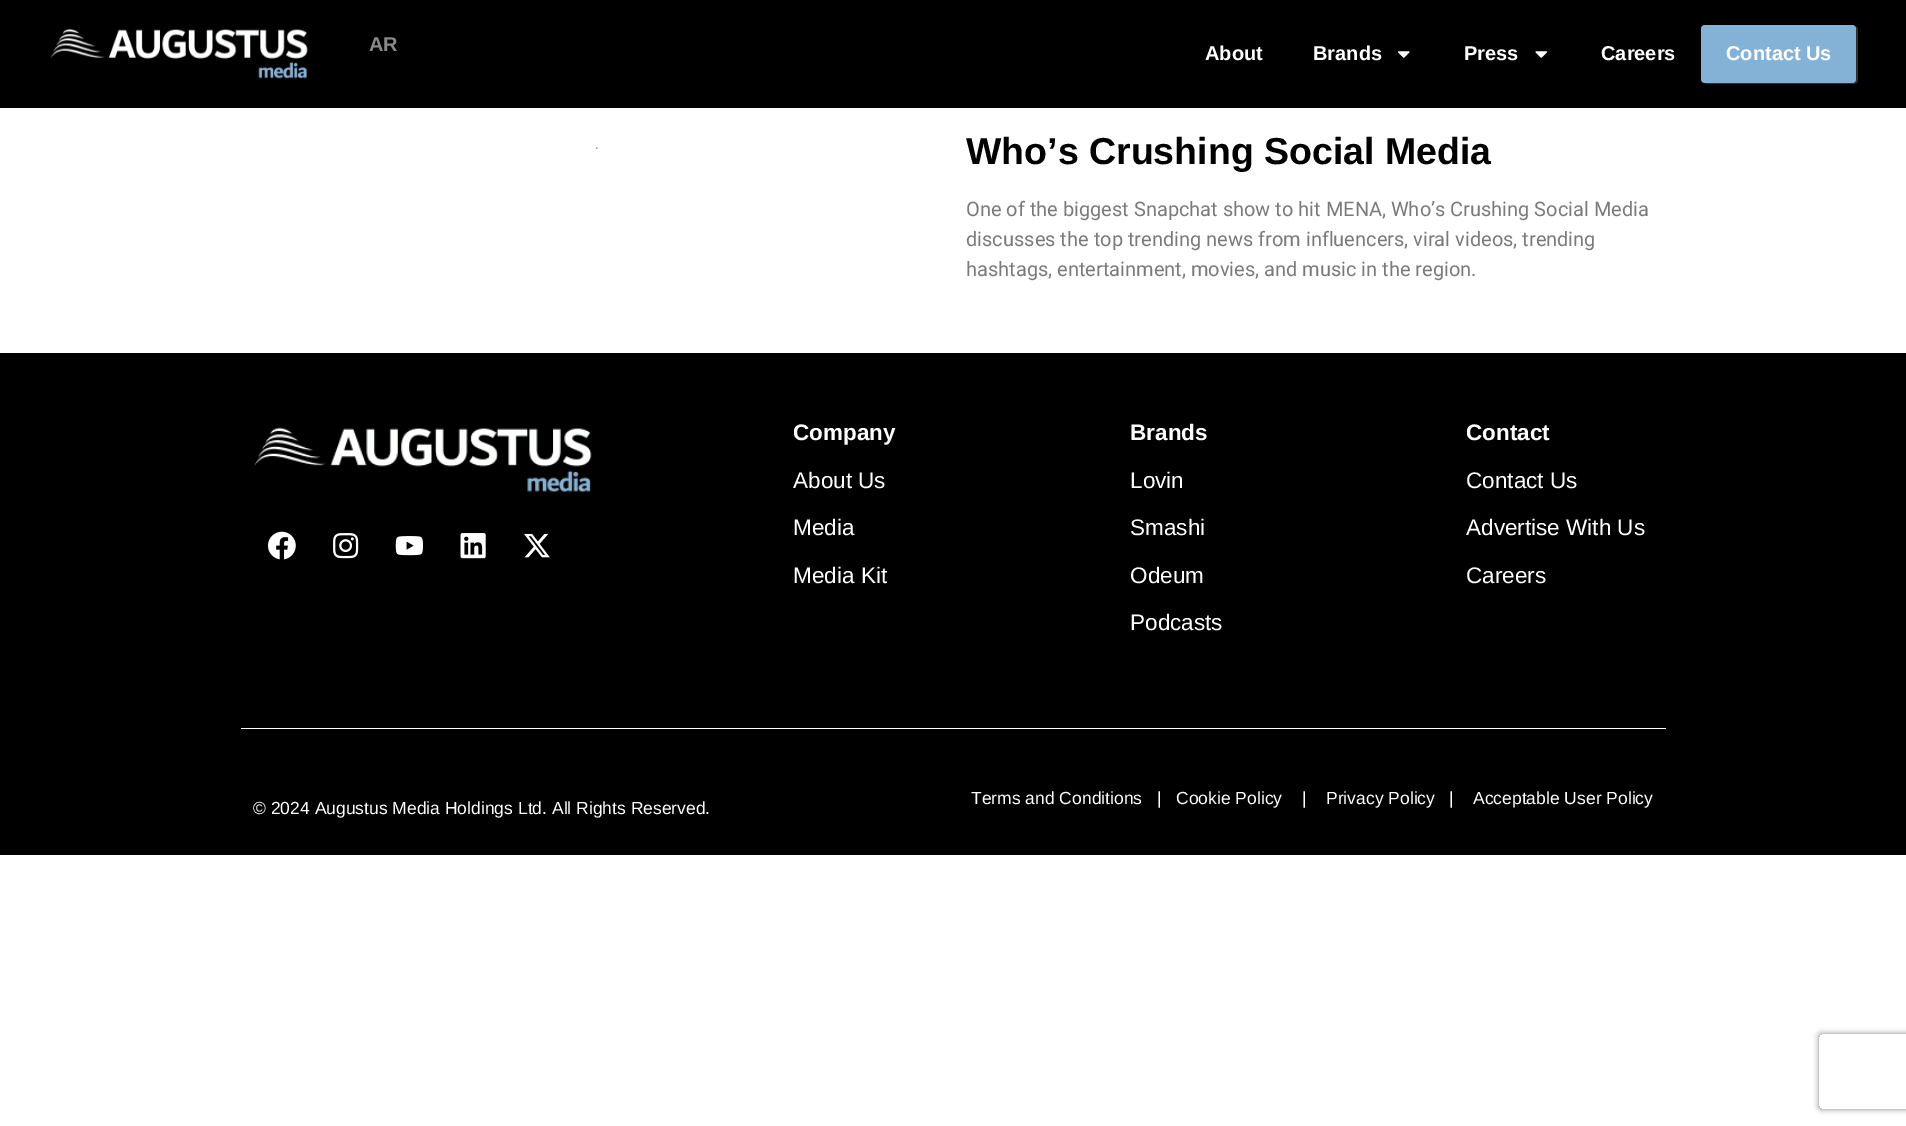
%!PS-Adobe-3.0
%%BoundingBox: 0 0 1906 1126
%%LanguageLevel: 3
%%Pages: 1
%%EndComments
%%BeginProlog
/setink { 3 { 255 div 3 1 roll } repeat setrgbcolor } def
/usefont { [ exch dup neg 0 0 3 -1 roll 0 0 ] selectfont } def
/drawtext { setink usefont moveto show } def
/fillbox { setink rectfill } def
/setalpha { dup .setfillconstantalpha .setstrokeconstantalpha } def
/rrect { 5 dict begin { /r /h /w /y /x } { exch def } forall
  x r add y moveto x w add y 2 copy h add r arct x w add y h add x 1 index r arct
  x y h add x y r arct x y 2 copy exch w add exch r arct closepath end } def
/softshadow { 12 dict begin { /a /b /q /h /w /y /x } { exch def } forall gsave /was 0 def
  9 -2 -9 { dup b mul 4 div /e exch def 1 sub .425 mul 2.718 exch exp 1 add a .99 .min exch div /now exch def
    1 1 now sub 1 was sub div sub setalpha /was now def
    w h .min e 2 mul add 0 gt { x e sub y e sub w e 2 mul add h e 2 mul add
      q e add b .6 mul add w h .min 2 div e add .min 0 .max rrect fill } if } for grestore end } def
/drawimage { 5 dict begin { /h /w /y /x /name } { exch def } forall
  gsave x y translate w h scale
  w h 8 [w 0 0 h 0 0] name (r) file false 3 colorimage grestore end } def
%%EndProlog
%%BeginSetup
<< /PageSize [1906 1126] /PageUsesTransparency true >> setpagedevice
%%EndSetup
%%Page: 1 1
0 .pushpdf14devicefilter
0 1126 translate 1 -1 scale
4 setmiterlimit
0 0 1906 1126 255 255 255 fillbox
0 0 1906 108 0 0 0 fillbox
(assets/img1.rgb) 50 28 258 51 drawimage
(AR) 369 51 /LiberationSans-Bold 20 137 137 138 drawtext
(About) 1205 60 /LiberationSans-Bold 20 255 255 255 drawtext
(Brands) 1313 60 /LiberationSans-Bold 20 255 255 255 drawtext
(assets/img2.rgb) 1398 51 12 7 drawimage
(Press) 1464 60 /LiberationSans-Bold 20 255 255 255 drawtext
(assets/img3.rgb) 1535 51 12 7 drawimage
(Careers) 1601 60 /LiberationSans-Bold 20 255 255 255 drawtext
47 47 47 setink
1704 82 moveto 1704 83 1706 84 1707 84 curveto 1854 84 lineto 1856 84 1858 82 1858 80 curveto 1858 30 lineto 1858 28 1857 27 1855 26 curveto 1856 27 1856 28 1856 29 curveto 1856 79 lineto 1856 81 1855 82 1852 82 curveto closepath fill
132 178 214 setink
1701 25 155 58 4 rrect fill
(Contact Us) 1726 60 /LiberationSans-Bold 20 255 255 255 drawtext
(assets/img4.rgb) 596 147 2 2 drawimage
(Who’s Crushing Social Media) 966 164 /LiberationSans-Bold 37.5 0 0 0 drawtext
(One of the biggest Snapchat show to hit MENA, Who’s Crushing Social Media) 966 216 /Roboto-Regular 20 122 122 122 drawtext
(discusses the top trending news from influencers, viral videos, trending) 966 246 /Roboto-Regular 20 122 122 122 drawtext
(hashtags, entertainment, movies, and music in the region.) 966 276 /Roboto-Regular 20 122 122 122 drawtext
0 353 1906 502 0 0 0 fillbox
(assets/img5.rgb) 254 427 338 65 drawimage
(assets/img6.rgb) 268 531 28 29 drawimage
(assets/img7.rgb) 333 533 26 26 drawimage
(assets/img8.rgb) 395 536 28 20 drawimage
(assets/img9.rgb) 460 533 26 26 drawimage
(assets/img10.rgb) 524 533 26 25 drawimage
(Company) 793 440 /LiberationSans-Bold 22.5 255 255 255 drawtext
(About Us) 793 488 /LiberationSans-Regular 22.5 255 255 255 drawtext
(Media) 793 535 /LiberationSans-Regular 22.5 255 255 255 drawtext
(Media Kit) 793 583 /LiberationSans-Regular 22.5 255 255 255 drawtext
(Brands) 1130 440 /LiberationSans-Bold 22.5 255 255 255 drawtext
(Lovin) 1130 488 /LiberationSans-Regular 22.5 255 255 255 drawtext
(Smashi) 1130 535 /LiberationSans-Regular 22.5 255 255 255 drawtext
(Odeum) 1130 583 /LiberationSans-Regular 22.5 255 255 255 drawtext
(Podcasts) 1130 630 /LiberationSans-Regular 22.5 255 255 255 drawtext
(Contact) 1466 440 /LiberationSans-Bold 22.5 255 255 255 drawtext
(Contact Us) 1466 488 /LiberationSans-Regular 22.5 255 255 255 drawtext
(Advertise With Us) 1466 535 /LiberationSans-Regular 22.5 255 255 255 drawtext
(Careers) 1466 583 /LiberationSans-Regular 22.5 255 255 255 drawtext
241 728 1425 1 255 255 255 fillbox
(© 2024 Augustus Media Holdings Ltd. All Rights Reserved.) 253 814 /LiberationSans-Regular 17.5 255 255 255 drawtext
(Terms and Conditions) 971 804 /LiberationSans-Regular 17.5 255 255 255 drawtext
(|) 1157 804 /LiberationSans-Regular 17.5 255 255 255 drawtext
(Cookie Policy) 1176 804 /LiberationSans-Regular 17.5 255 255 255 drawtext
(|) 1302 804 /LiberationSans-Regular 17.5 255 255 255 drawtext
(Privacy Policy) 1326 804 /LiberationSans-Regular 17.5 255 255 255 drawtext
(|) 1449 804 /LiberationSans-Regular 17.5 255 255 255 drawtext
(Acceptable User Policy) 1473 804 /LiberationSans-Regular 17.5 255 255 255 drawtext
gsave
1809 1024 moveto 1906 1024 lineto 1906 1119 lineto 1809 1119 lineto closepath 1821.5 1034 moveto 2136.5 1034 lineto 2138 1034 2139 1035 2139 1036.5 curveto 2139 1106.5 lineto 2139 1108 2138 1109 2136.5 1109 curveto 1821.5 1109 lineto 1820 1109 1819 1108 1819 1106.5 curveto 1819 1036.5 lineto 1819 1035 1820 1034 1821.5 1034 curveto closepath eoclip newpath
128 128 128 setink
1819 1034 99 75 2.5 3 1 softshadow
grestore
.poppdf14devicefilter showpage
%%EOF
